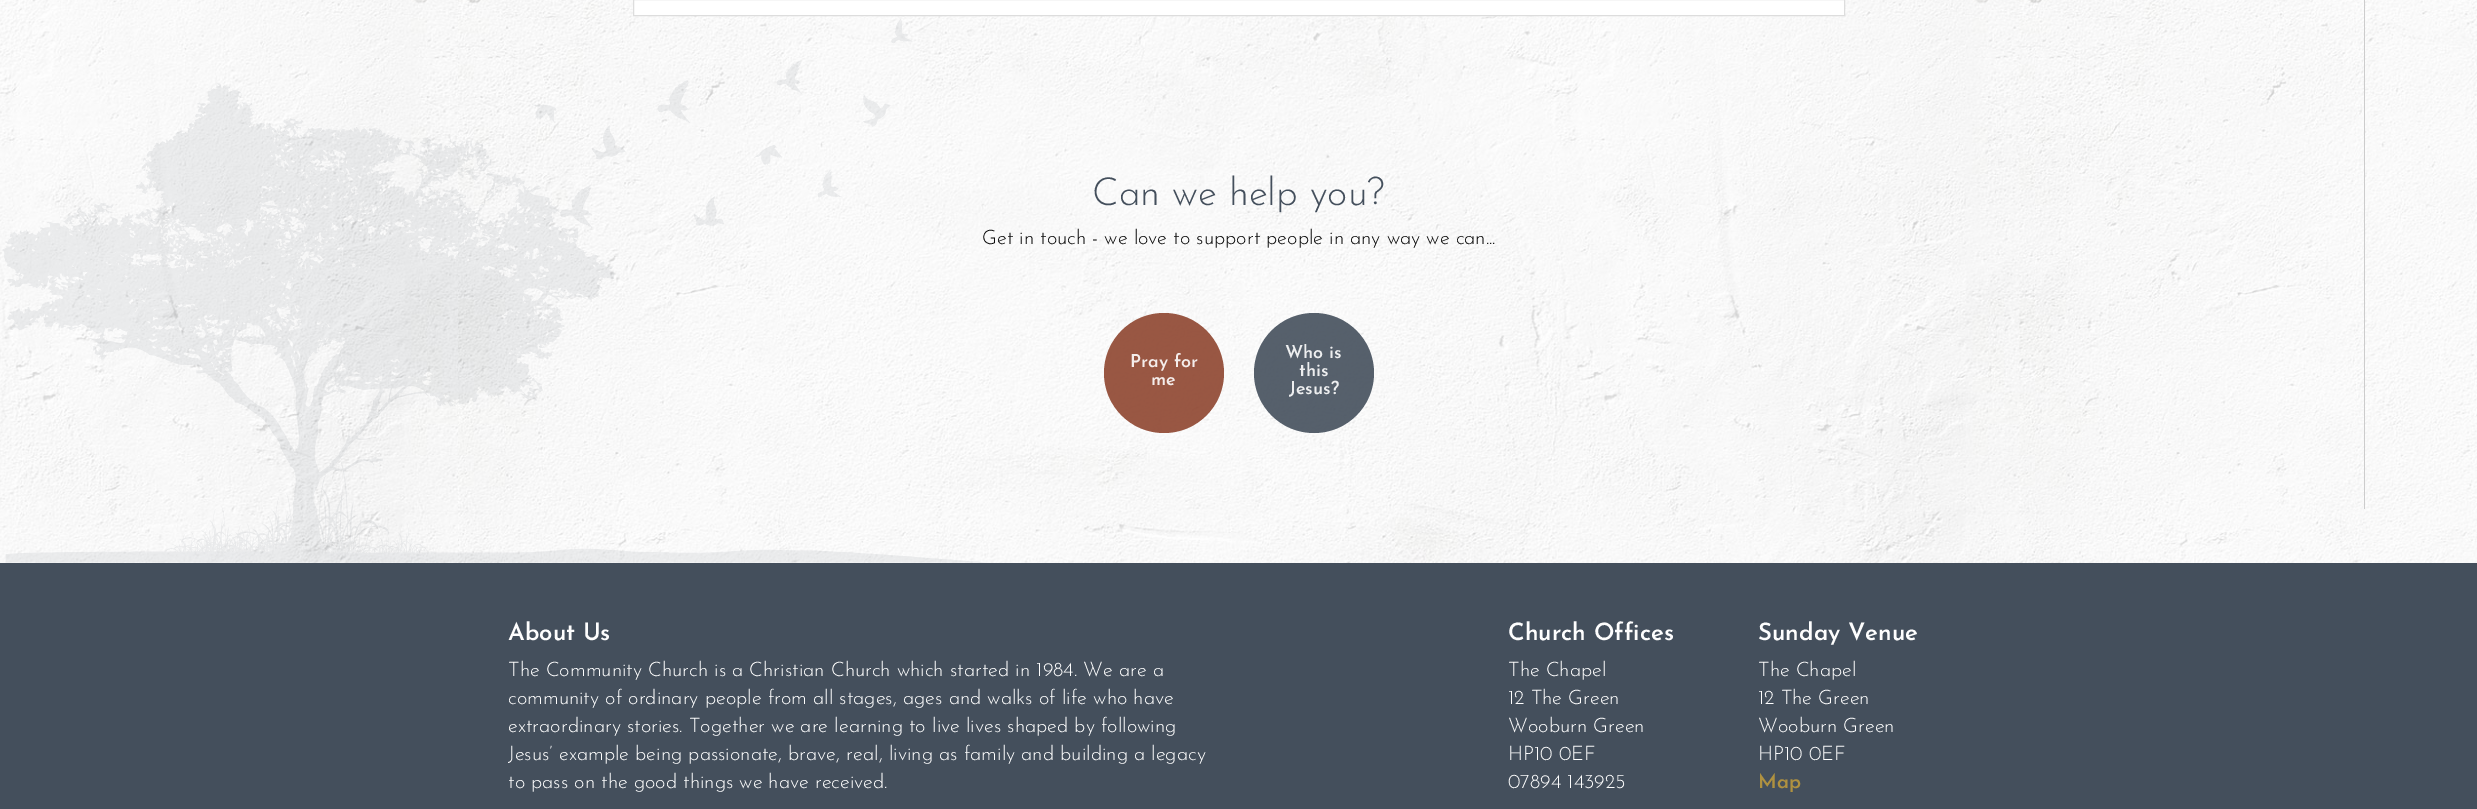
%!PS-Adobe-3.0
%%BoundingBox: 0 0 2477 809
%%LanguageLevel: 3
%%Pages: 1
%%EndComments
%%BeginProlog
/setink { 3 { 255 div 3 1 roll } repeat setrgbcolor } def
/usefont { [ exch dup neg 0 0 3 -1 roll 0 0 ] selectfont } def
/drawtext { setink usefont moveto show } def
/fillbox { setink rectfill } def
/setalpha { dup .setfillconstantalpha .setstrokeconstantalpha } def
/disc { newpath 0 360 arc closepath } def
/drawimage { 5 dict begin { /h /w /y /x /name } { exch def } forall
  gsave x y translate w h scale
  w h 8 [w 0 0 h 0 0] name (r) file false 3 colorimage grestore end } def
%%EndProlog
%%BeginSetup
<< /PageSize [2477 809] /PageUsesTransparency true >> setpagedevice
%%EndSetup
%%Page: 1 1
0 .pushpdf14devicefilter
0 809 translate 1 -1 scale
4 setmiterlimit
0 0 2477 809 255 255 255 fillbox
(assets/img1.rgb) 0 0 2477 563 drawimage
633.5 -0.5 moveto 1844.5 -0.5 lineto 1844.5 15.5 lineto 633.5 15.5 lineto closepath gsave fill grestore
221 221 221 setink
stroke
(assets/img2.rgb) 2 19 985 544 drawimage
(Can we help you?) 1092 205 /JosefinSans-Light 38.75 68 79 92 drawtext
(Get in touch - we love to support people in any way we can...) 982 244 /JosefinSans-Light 20 10 10 10 drawtext
0.9 setalpha
142 69 47 setink
1164 373 60 disc fill
1 setalpha
(Pray for) 1130 367 /JosefinSans-SemiBold 18 244 237 235 drawtext
(me) 1151 385 /JosefinSans-SemiBold 18 244 237 235 drawtext
0.9 setalpha
68 79 92 setink
1314 373 60 disc fill
1 setalpha
(Who is) 1285 358 /JosefinSans-SemiBold 18 237 238 239 drawtext
(this) 1299 376 /JosefinSans-SemiBold 18 237 238 239 drawtext
(Jesus?) 1289 394 /JosefinSans-SemiBold 18 237 238 239 drawtext
2364 0 1 509 204 204 204 fillbox
0 563 2477 246 68 79 92 fillbox
(About Us) 508 640 /JosefinSans-SemiBold 24 254 254 254 drawtext
(The Community Church is a Christian Church which started in 1984. We are a) 508 676 /JosefinSans-Light 20 254 254 254 drawtext
(community of ordinary people from all stages, ages and walks of life who have) 508 704 /JosefinSans-Light 20 254 254 254 drawtext
(extraordinary stories. Together we are learning to live lives shaped by following) 508 732 /JosefinSans-Light 20 254 254 254 drawtext
(Jesus’ example being passionate, brave, real, living as family and building a legacy) 508 760 /JosefinSans-Light 20 254 254 254 drawtext
(to pass on the good things we have received.) 508 788 /JosefinSans-Light 20 254 254 254 drawtext
(Church Offices) 1508 640 /JosefinSans-SemiBold 24 254 254 254 drawtext
(The Chapel) 1508 676 /JosefinSans-Light 20 254 254 254 drawtext
(12 The Green) 1508 704 /JosefinSans-Light 20 254 254 254 drawtext
(Wooburn Green) 1508 732 /JosefinSans-Light 20 254 254 254 drawtext
(HP10 0EF) 1508 760 /JosefinSans-Light 20 254 254 254 drawtext
(07894 143925) 1508 788 /JosefinSans-Light 20 254 254 254 drawtext
(Sunday Venue) 1758 640 /JosefinSans-SemiBold 24 254 254 254 drawtext
(The Chapel) 1758 676 /JosefinSans-Light 20 254 254 254 drawtext
(12 The Green) 1758 704 /JosefinSans-Light 20 254 254 254 drawtext
(Wooburn Green) 1758 732 /JosefinSans-Light 20 254 254 254 drawtext
(HP10 0EF) 1758 760 /JosefinSans-Light 20 254 254 254 drawtext
(Map) 1758 788 /JosefinSans-SemiBold 20 175 145 64 drawtext
.poppdf14devicefilter showpage
%%EOF
